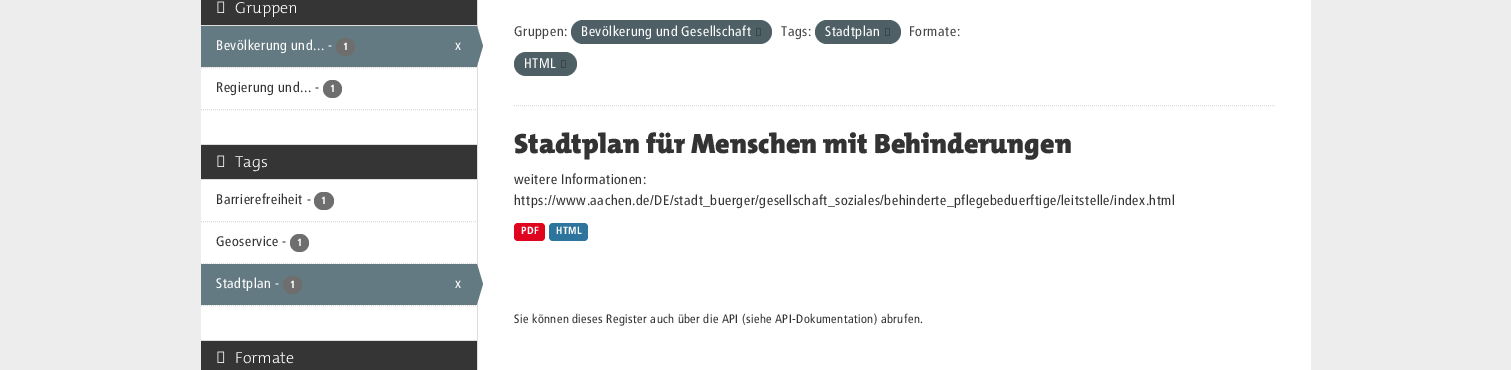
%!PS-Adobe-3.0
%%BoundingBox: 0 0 1511 370
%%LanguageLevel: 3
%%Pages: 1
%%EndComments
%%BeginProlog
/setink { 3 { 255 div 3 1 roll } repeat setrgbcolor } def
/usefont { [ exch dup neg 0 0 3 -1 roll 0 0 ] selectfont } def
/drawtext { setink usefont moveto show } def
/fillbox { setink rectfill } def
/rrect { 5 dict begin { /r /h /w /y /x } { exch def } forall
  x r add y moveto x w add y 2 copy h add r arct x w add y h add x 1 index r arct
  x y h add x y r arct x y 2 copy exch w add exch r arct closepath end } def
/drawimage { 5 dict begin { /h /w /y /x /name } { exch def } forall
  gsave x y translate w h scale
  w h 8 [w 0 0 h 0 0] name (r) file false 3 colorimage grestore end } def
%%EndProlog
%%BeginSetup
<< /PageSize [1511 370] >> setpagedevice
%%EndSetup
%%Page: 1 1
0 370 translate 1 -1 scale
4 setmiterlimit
0 0 1511 370 237 237 237 fillbox
201 0 1110 370 255 255 255 fillbox
201 0 276 25 53 53 53 fillbox
201 25 276 1 221 221 221 fillbox
(assets/img1.rgb) 217 1 8 12 drawimage
(Gruppen) 235 13 /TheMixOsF-Light 16 255 255 255 drawtext
202 67 275 1 246 246 246 fillbox
221 221 221 setink
[1 1] 0 setdash
201 67.5 moveto 477 67.5 lineto stroke
201 26 276 41 100 122 130 fillbox
(Bevölkerung und... -) 216 50 /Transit-Regular 14 255 255 255 drawtext
110 110 110 setink
336 38 19 18 9 rrect fill
(1) 343 50 /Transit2-Regular 10.5 255 255 255 drawtext
(x) 455 50 /Transit-Regular 14 255 255 255 drawtext
477 0 1 370 221 221 221 fillbox
100 122 130 setink
477 66 moveto 477 26 lineto 483 46 lineto closepath fill
(Regierung und... -) 216 92 /Transit-Regular 14 51 51 51 drawtext
110 110 110 setink
323 80 19 18 9 rrect fill
(1) 330 92 /Transit2-Regular 10.5 255 255 255 drawtext
221 221 221 setink
201 109.5 moveto 477 109.5 lineto stroke
201 145 276 34 53 53 53 fillbox
201 144 276 1 221 221 221 fillbox
201 179 276 1 221 221 221 fillbox
(assets/img1.rgb) 217 155 8 12 drawimage
(Tags) 235 167 /TheMixOsF-Light 16 255 255 255 drawtext
221 221 221 setink
201 221.5 moveto 477 221.5 lineto stroke
(Barrierefreiheit -) 216 204 /Transit-Regular 14 51 51 51 drawtext
110 110 110 setink
314 192 20 18 9 rrect fill
(1) 321 204 /Transit2-Regular 10.5 255 255 255 drawtext
221 221 221 setink
201 263.5 moveto 477 263.5 lineto stroke
(Geoservice -) 216 246 /Transit-Regular 14 51 51 51 drawtext
110 110 110 setink
290 234 19 18 9 rrect fill
(1) 297 246 /Transit2-Regular 10.5 255 255 255 drawtext
201 264 276 41 100 122 130 fillbox
(Stadtplan -) 216 288 /Transit-Regular 14 255 255 255 drawtext
110 110 110 setink
283 276 19 18 9 rrect fill
(1) 290 288 /Transit2-Regular 10.5 255 255 255 drawtext
(x) 455 288 /Transit-Regular 14 255 255 255 drawtext
100 122 130 setink
477 304 moveto 477 264 lineto 483 284 lineto closepath fill
221 221 221 setink
201 305.5 moveto 477 305.5 lineto stroke
201 341 276 29 53 53 53 fillbox
201 340 276 1 221 221 221 fillbox
(assets/img1.rgb) 217 351 8 12 drawimage
(Formate) 235 363 /TheMixOsF-Light 16 255 255 255 drawtext
221 221 221 setink
514 105.5 moveto 1275 105.5 lineto stroke
(Gruppen:) 514 36 /Transit-Regular 14 68 68 68 drawtext
78 95 101 setink
571 20 201 24 12 rrect fill
(Bevölkerung und Gesellschaft) 581 36 /Transit-Regular 14 255 255 255 drawtext
(assets/img2.rgb) 756 28 5 8 drawimage
(Tags:) 781 36 /Transit-Regular 14 68 68 68 drawtext
78 95 101 setink
815 20 86 24 12 rrect fill
(Stadtplan) 825 36 /Transit-Regular 14 255 255 255 drawtext
(assets/img2.rgb) 885 28 5 8 drawimage
(Formate:) 909 36 /Transit-Regular 14 68 68 68 drawtext
78 95 101 setink
514 52 63 24 12 rrect fill
(HTML) 524 68 /Transit-Regular 14 255 255 255 drawtext
(assets/img2.rgb) 561 60 5 8 drawimage
(Stadtplan für Menschen mit Behinderungen) 514 153 /TheMixOsF-Black 28 51 51 51 drawtext
(weitere Informationen:) 514 184 /Transit-Regular 14 51 51 51 drawtext
(https://www.aachen.de/DE/stadt_buerger/gesellschaft_soziales/behinderte_pflegebeduerftige/leitstelle/index.html) 514 205 /Transit-Regular 14 51 51 51 drawtext
224 5 30 setink
514 223 31 18 4 rrect fill
(PDF) 521 234 /Transit2-Regular 10.5 255 255 255 drawtext
46 117 158 setink
549 223 39 18 4 rrect fill
(HTML) 556 234 /Transit2-Regular 10.5 255 255 255 drawtext
(Sie können dieses Register auch über die API \(siehe API-Dokumentation\) abrufen.) 514 323 /Transit-Regular 12.25 51 51 51 drawtext
showpage
%%EOF
